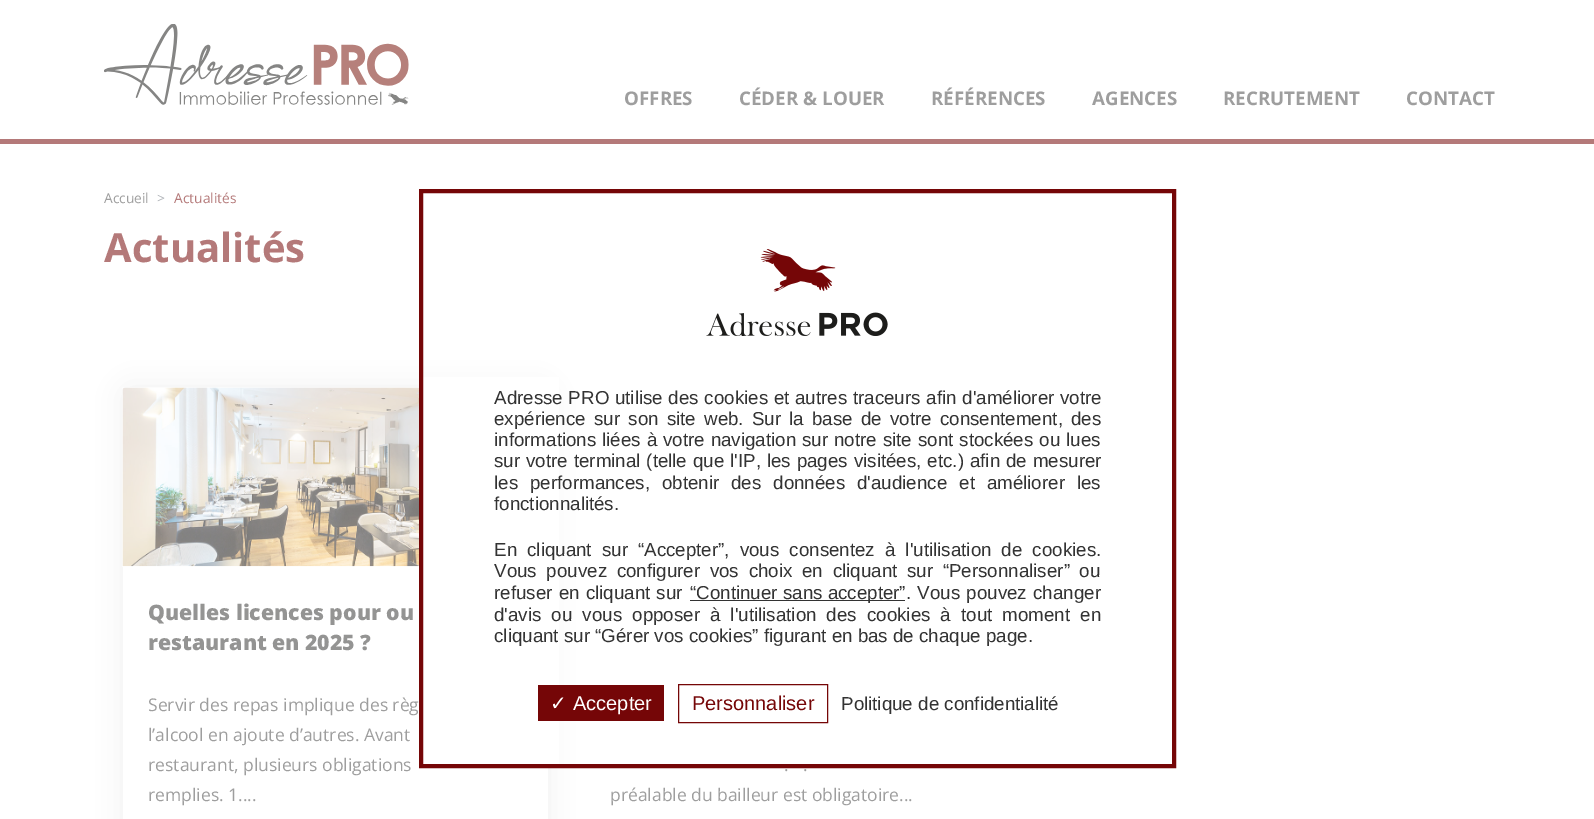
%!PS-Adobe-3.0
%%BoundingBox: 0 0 1594 819
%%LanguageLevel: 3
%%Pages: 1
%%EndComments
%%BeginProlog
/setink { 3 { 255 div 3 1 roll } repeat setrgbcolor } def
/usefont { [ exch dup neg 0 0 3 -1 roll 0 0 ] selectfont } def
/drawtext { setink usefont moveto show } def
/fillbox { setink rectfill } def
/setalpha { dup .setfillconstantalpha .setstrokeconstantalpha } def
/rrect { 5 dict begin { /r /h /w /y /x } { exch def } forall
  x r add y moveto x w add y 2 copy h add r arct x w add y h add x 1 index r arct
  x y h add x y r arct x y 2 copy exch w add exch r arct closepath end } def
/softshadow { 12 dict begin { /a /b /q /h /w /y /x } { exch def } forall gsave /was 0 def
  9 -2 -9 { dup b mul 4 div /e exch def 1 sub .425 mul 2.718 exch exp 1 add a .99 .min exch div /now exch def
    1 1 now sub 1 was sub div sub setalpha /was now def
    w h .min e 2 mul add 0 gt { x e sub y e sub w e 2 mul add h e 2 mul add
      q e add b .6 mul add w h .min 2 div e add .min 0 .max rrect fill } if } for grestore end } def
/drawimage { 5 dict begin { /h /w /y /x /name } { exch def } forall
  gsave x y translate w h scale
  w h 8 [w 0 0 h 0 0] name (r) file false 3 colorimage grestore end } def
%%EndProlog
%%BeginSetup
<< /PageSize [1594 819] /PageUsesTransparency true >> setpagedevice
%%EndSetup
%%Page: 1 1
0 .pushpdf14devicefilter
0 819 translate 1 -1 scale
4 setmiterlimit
0 0 1594 819 255 255 255 fillbox
0 139 1594 5 180 121 121 fillbox
(assets/img1.rgb) 104 24 305 81 drawimage
(OFFRES) 624 105 /OpenSans-Bold 18.75 158 158 158 drawtext
(CÉDER & LOUER) 739 105 /OpenSans-Bold 18.75 158 158 158 drawtext
(RÉFÉRENCES) 931 105 /OpenSans-Bold 18.75 158 158 158 drawtext
(AGENCES) 1092 105 /OpenSans-Bold 18.75 158 158 158 drawtext
(RECRUTEMENT) 1223 105 /OpenSans-Bold 18.75 158 158 158 drawtext
(CONTACT) 1406 105 /OpenSans-Bold 18.75 158 158 158 drawtext
(Accueil) 104 203 /OpenSans-Regular 13.75 158 158 158 drawtext
(>) 157 203 /OpenSans-Regular 13.75 176 180 185 drawtext
(Actualités) 174 203 /OpenSans-Regular 13.75 180 121 121 drawtext
(Actualités) 104 262 /OpenSans-Bold 40 180 121 121 drawtext
117 117 117 setink
123 388 425 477 8 12.5 0.1 softshadow
255 255 255 setink
123 388 425 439 8 rrect fill
(assets/img2.rgb) 122 387 297 180 drawimage
(Quelles licences pour ou) 148 620 /OpenSans-ExtraBold 21.25 148 148 147 drawtext
(restaurant en 2025 ?) 148 650 /OpenSans-ExtraBold 21.25 148 148 147 drawtext
(Servir des repas implique des règ) 148 711 /OpenSans-Regular 17.5 158 158 158 drawtext
(l’alcool en ajoute d’autres. Avant) 148 741 /OpenSans-Regular 17.5 158 158 158 drawtext
(restaurant, plusieurs obligations) 148 771 /OpenSans-Regular 17.5 158 158 158 drawtext
(remplies. 1....) 148 801 /OpenSans-Regular 17.5 158 158 158 drawtext
(.) 784 771 /OpenSans-Regular 17.5 158 158 158 drawtext
(.) 803 771 /OpenSans-Regular 17.5 158 158 158 drawtext
(préalable du bailleur est obligatoire...) 610 801 /OpenSans-Regular 17.5 158 158 158 drawtext
423 377 136 387 255 255 255 fillbox
117 6 7 setink
4 setlinewidth
421 191 753 575 rectstroke
(assets/img3.rgb) 706 249 182 87 drawimage
/LiberationSans-Regular 18.75 usefont
51 51 51 setink
494 404 moveto 0.5 0 32 (Adresse PRO utilise des cookies et autres traceurs afin d'améliorer votre) widthshow
494 425 moveto 3 0 32 (expérience sur son site web. Sur la base de votre consentement, des) widthshow
494 446 moveto 0.75 0 32 (informations liées à votre navigation sur notre site sont stockées ou lues) widthshow
494 467 moveto 0.75 0 32 (sur votre terminal \(telle que l'IP, les pages visitées, etc.\) afin de mesurer) widthshow
494 489 moveto 6.75 0 32 (les performances, obtenir des données d'audience et améliorer les) widthshow
(fonctionnalités.) 494 510 /LiberationSans-Regular 18.75 51 51 51 drawtext
494 556 moveto 4.9 0 32 (En cliquant sur “Accepter”, vous consentez à l'utilisation de cookies.) widthshow
494 577 moveto 4.5 0 32 (Vous pouvez configurer vos choix en cliquant sur “Personnaliser” ou) widthshow
494 599 moveto 1 0 32 (refuser en cliquant sur) widthshow
690 600 215 1 51 51 51 fillbox
(“Continuer sans accepter”) 690 599 /LiberationSans-Regular 18.75 51 51 51 drawtext
906 599 moveto 1 0 32 (. Vous pouvez changer) widthshow
494 621 moveto 4.9 0 32 (d'avis ou vous opposer à l'utilisation des cookies à tout moment en) widthshow
(cliquant sur “Gérer vos cookies” figurant en bas de chaque page.) 494 642 /LiberationSans-Regular 18.75 51 51 51 drawtext
538 685 126 36 117 6 7 fillbox
(✓) 550 710 /DejaVuSans-Regular 20 255 255 255 drawtext
(Accepter) 573 710 /LiberationSans-Regular 20 255 255 255 drawtext
117 6 7 setink
1 setlinewidth
678.5 684.5 149 38 rectstroke
(Personnaliser) 692 710 /LiberationSans-Regular 20 117 6 7 drawtext
(Politique de confidentialité) 841 710 /LiberationSans-Regular 18.75 51 51 51 drawtext
.poppdf14devicefilter showpage
%%EOF
